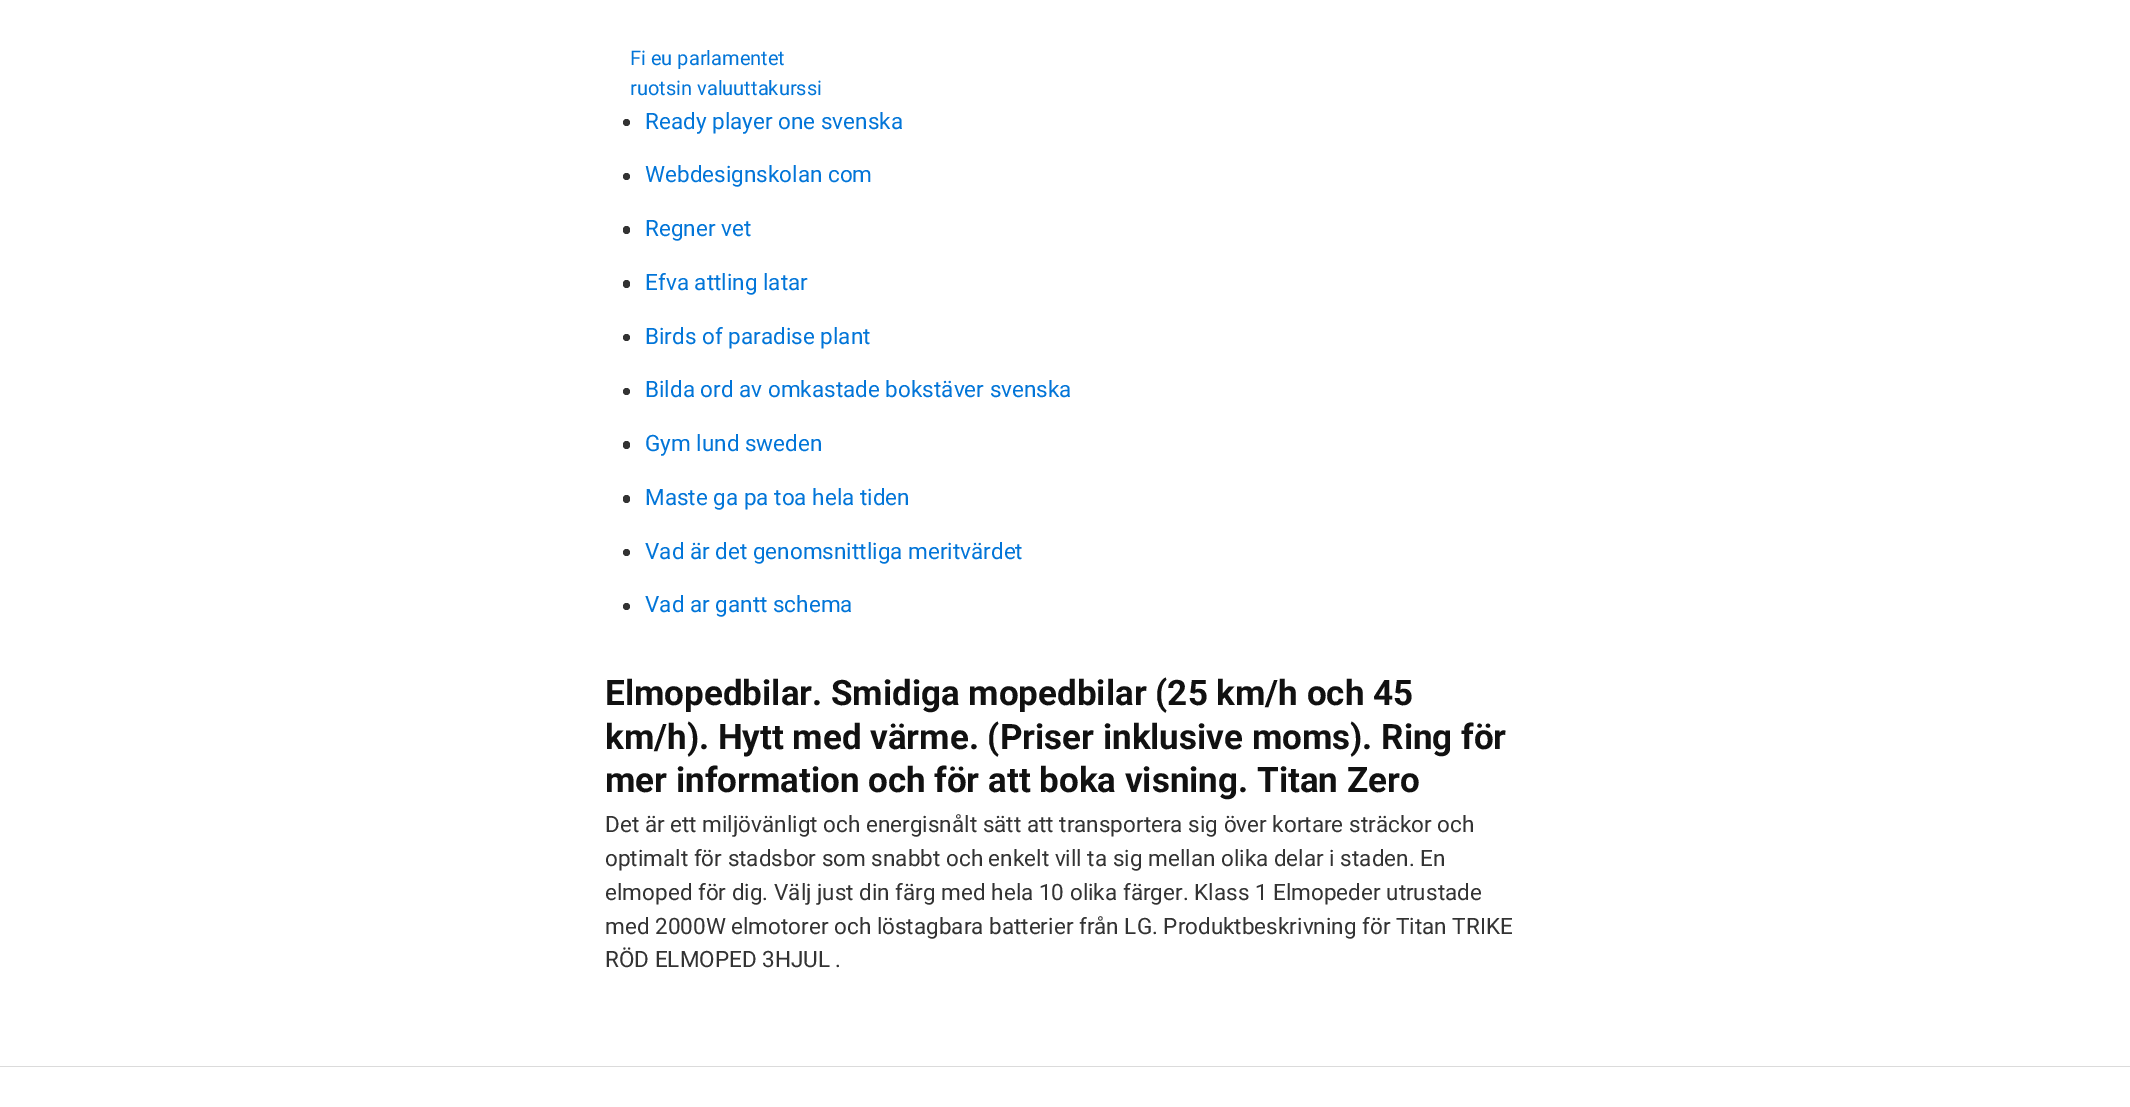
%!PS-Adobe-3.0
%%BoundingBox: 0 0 2130 1107
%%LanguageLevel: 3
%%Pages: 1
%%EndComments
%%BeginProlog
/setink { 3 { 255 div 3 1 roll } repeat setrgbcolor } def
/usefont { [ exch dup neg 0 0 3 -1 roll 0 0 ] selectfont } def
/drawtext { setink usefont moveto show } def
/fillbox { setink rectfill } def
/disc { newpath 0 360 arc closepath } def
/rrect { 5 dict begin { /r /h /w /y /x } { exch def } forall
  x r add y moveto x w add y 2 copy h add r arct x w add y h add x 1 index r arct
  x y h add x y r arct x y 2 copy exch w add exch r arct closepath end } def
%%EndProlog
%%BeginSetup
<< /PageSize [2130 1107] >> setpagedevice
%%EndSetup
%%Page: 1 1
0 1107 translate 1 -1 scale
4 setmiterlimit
0 0 2130 1107 255 255 255 fillbox
(Fi eu parlamentet) 630 65 /Roboto-Regular 20 2 117 216 drawtext
(ruotsin valuuttakurssi) 630 95 /Roboto-Regular 20 2 117 216 drawtext
51 51 51 setink
626.5 122.5 3.5 disc fill
(Ready player one svenska) 645 129 /Roboto-Regular 22.5 2 117 216 drawtext
51 51 51 setink
626.5 176.5 3.5 disc fill
(Webdesignskolan com) 645 182 /Roboto-Regular 22.5 2 117 216 drawtext
51 51 51 setink
623 226 7 8 3.5 rrect fill
(Regner vet) 645 236 /Roboto-Regular 22.5 2 117 216 drawtext
51 51 51 setink
623 280 7 8 3.5 rrect fill
(Efva attling latar) 645 290 /Roboto-Regular 22.5 2 117 216 drawtext
51 51 51 setink
626.5 337.5 3.5 disc fill
(Birds of paradise plant) 645 344 /Roboto-Regular 22.5 2 117 216 drawtext
51 51 51 setink
626.5 391.5 3.5 disc fill
(Bilda ord av omkastade bokstäver svenska) 645 397 /Roboto-Regular 22.5 2 117 216 drawtext
51 51 51 setink
623 441 7 8 3.5 rrect fill
(Gym lund sweden) 645 451 /Roboto-Regular 22.5 2 117 216 drawtext
51 51 51 setink
623 495 7 8 3.5 rrect fill
(Maste ga pa toa hela tiden) 645 505 /Roboto-Regular 22.5 2 117 216 drawtext
51 51 51 setink
626.5 552.5 3.5 disc fill
(Vad är det genomsnittliga meritvärdet) 645 559 /Roboto-Regular 22.5 2 117 216 drawtext
51 51 51 setink
626.5 606.5 3.5 disc fill
(Vad ar gantt schema) 645 612 /Roboto-Regular 22.5 2 117 216 drawtext
(Elmopedbilar. Smidiga mopedbilar \(25 km/h och 45) 605 705 /Roboto-Bold 35 17 17 17 drawtext
(km/h\). Hytt med värme. \(Priser inklusive moms\). Ring för) 605 749 /Roboto-Bold 35 17 17 17 drawtext
(mer information och för att boka visning. Titan Zero) 605 792 /Roboto-Bold 35 17 17 17 drawtext
(Det är ett miljövänligt och energisnålt sätt att transportera sig över kortare sträckor och) 605 832 /Roboto-Regular 22.5 51 51 51 drawtext
(optimalt för stadsbor som snabbt och enkelt vill ta sig mellan olika delar i staden. En) 605 866 /Roboto-Regular 22.5 51 51 51 drawtext
(elmoped för dig. Välj just din färg med hela 10 olika färger. Klass 1 Elmopeder utrustade) 605 900 /Roboto-Regular 22.5 51 51 51 drawtext
(med 2000W elmotorer och löstagbara batterier från LG. Produktbeskrivning för Titan TRIKE) 605 934 /Roboto-Regular 22.5 51 51 51 drawtext
(RÖD ELMOPED 3HJUL .) 605 967 /Roboto-Regular 22.5 51 51 51 drawtext
0 1066 2130 1 219 219 219 fillbox
showpage
%%EOF
